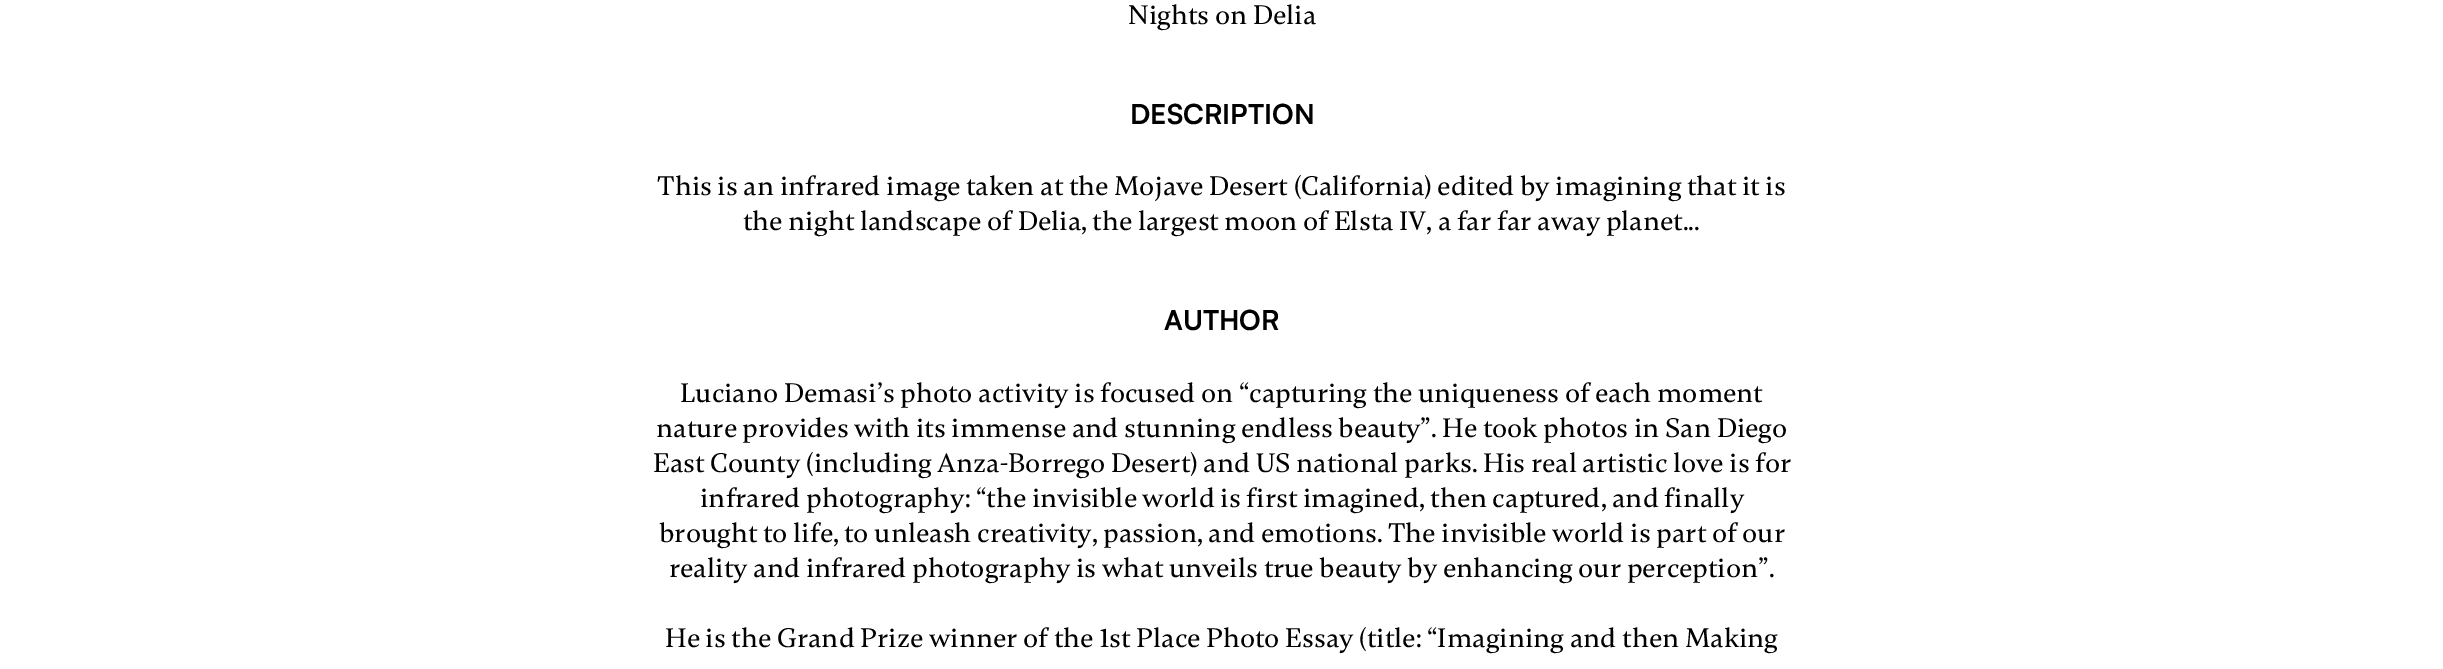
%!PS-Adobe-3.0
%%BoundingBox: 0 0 2443 669
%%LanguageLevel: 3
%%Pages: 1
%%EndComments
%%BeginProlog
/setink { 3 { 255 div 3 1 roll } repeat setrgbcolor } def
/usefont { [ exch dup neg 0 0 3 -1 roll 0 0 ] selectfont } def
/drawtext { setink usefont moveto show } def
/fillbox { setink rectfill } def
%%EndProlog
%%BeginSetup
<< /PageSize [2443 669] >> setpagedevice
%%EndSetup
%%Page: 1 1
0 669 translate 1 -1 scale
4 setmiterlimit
0 0 2443 669 255 255 255 fillbox
(Nights on Delia) 1128 24 /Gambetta-Medium 27.5 0 0 0 drawtext
(DESCRIPTION) 1130 124 /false-Bold 27.5 0 0 0 drawtext
(This is an infrared image taken at the Mojave Desert \(California\) edited by imagining that it is) 657 195 /Gambetta-Medium 27.5 0 0 0 drawtext
(the night landscape of Delia, the largest moon of Elsta IV, a far far away planet...) 743 230 /Gambetta-Medium 27.5 0 0 0 drawtext
(AUTHOR) 1164 330 /false-Bold 27.5 0 0 0 drawtext
(Luciano Demasi’s photo activity is focused on “capturing the uniqueness of each moment) 680 402 /Gambetta-Medium 27.5 0 0 0 drawtext
(nature provides with its immense and stunning endless beauty”. He took photos in San Diego) 656 437 /Gambetta-Medium 27.5 0 0 0 drawtext
(East County \(including Anza-Borrego Desert\) and US national parks. His real artistic love is for) 653 472 /Gambetta-Medium 27.5 0 0 0 drawtext
(infrared photography: “the invisible world is first imagined, then captured, and finally) 700 507 /Gambetta-Medium 27.5 0 0 0 drawtext
(brought to life, to unleash creativity, passion, and emotions. The invisible world is part of our) 659 542 /Gambetta-Medium 27.5 0 0 0 drawtext
(reality and infrared photography is what unveils true beauty by enhancing our perception”.) 669 577 /Gambetta-Medium 27.5 0 0 0 drawtext
(He is the Grand Prize winner of the 1st Place Photo Essay \(title: “Imagining and then Making) 665 647 /Gambetta-Medium 27.5 0 0 0 drawtext
showpage
%%EOF
